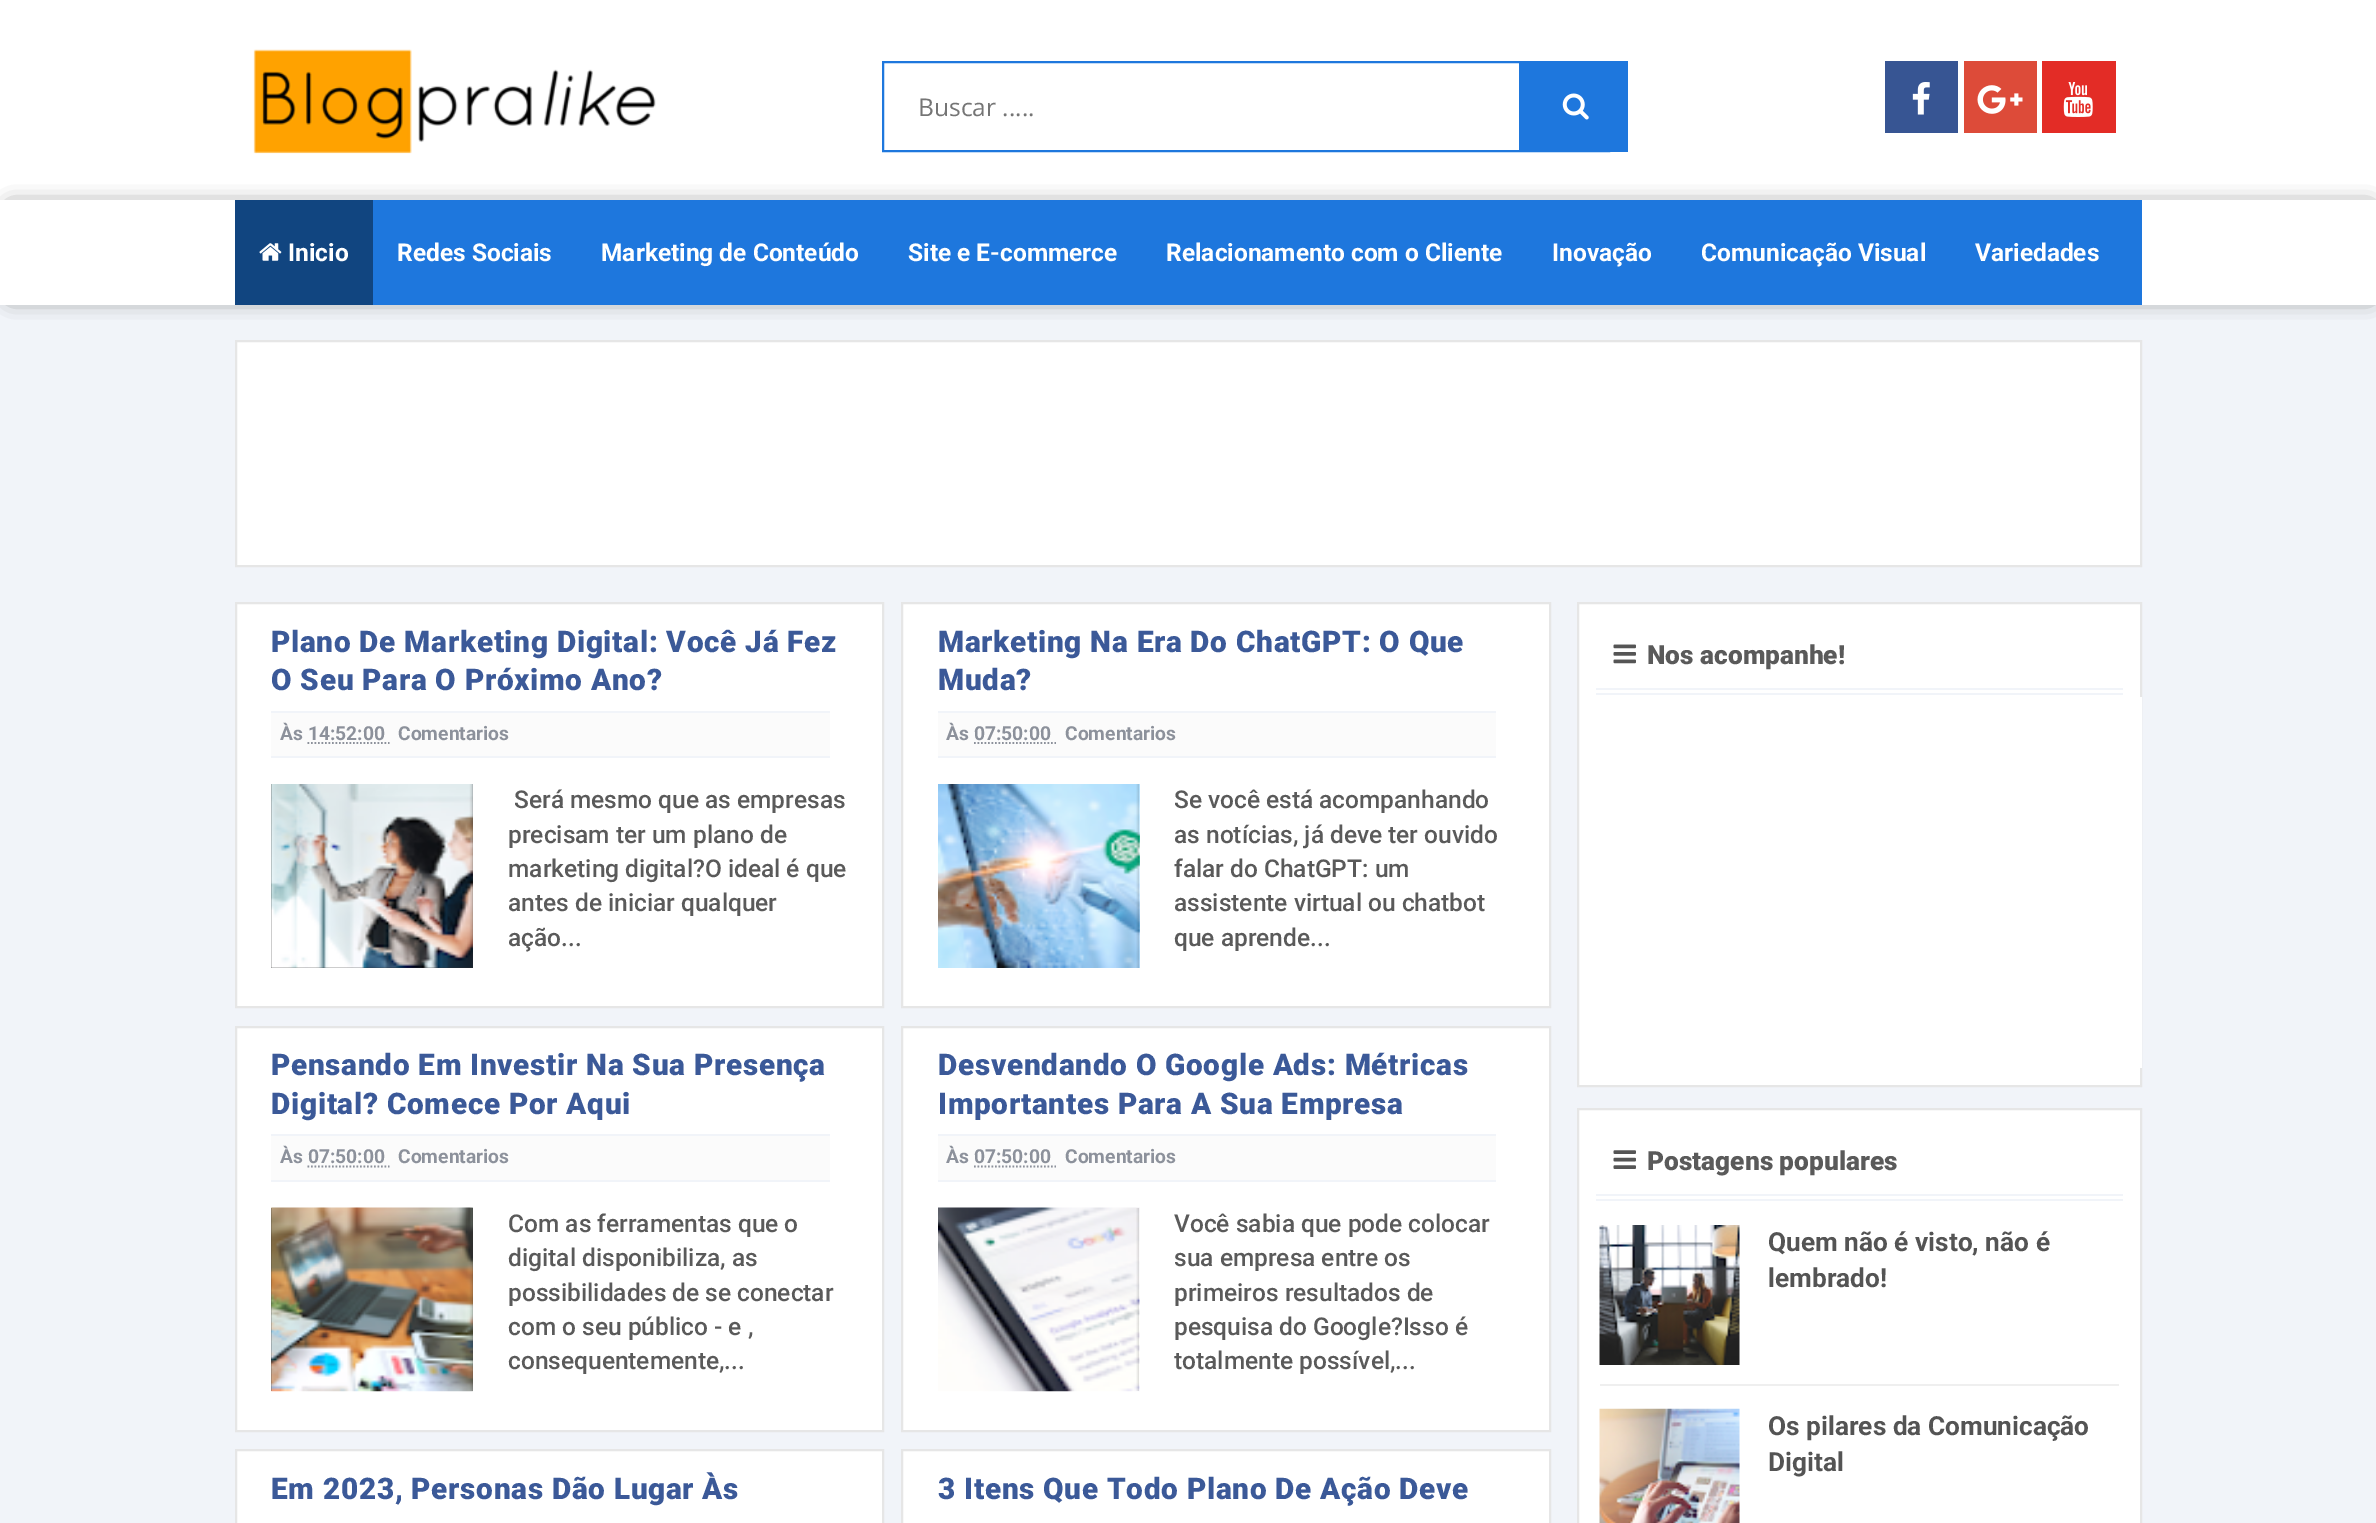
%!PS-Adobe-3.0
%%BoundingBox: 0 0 2376 1523
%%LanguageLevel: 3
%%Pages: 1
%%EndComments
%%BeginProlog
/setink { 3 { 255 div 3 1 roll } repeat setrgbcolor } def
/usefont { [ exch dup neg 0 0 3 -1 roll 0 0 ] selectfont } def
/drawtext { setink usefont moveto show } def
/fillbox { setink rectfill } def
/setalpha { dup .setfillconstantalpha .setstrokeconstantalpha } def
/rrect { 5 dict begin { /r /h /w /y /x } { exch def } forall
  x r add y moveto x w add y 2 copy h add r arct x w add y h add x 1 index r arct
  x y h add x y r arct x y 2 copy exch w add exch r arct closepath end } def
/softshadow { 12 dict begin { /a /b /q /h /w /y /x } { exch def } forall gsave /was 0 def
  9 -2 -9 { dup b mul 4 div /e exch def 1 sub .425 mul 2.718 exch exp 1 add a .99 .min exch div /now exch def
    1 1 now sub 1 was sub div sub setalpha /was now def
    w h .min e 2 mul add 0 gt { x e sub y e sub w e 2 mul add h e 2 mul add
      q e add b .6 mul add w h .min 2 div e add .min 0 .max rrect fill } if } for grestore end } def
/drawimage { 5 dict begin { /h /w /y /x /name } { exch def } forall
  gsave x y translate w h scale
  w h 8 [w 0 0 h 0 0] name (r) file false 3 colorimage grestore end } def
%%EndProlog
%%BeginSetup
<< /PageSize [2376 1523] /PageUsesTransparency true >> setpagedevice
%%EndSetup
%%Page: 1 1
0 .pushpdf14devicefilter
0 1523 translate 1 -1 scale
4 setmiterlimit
0 0 2376 1523 241 244 249 fillbox
0 0 2376 200 255 255 255 fillbox
(assets/img1.rgb) 253 49 403 105 drawimage
30 119 221 setink
2 setlinewidth
883 62 726 89 rectstroke
(Buscar .....) 918 116 /OpenSans-Regular 24.5 117 117 117 drawtext
1519 61 109 91 30 119 221 fillbox
(assets/img2.rgb) 1562 93 27 27 drawimage
1885 61 73 72 55 85 147 fillbox
(assets/img3.rgb) 1912 82 18 33 drawimage
1964 61 73 72 221 75 57 fillbox
(assets/img4.rgb) 1977 85 46 29 drawimage
2042 61 74 72 227 44 38 fillbox
(assets/img5.rgb) 2063 82 30 35 drawimage
0 0 0 setink
11 208 2359 88 0 10.5 0.75 softshadow
0 200 2376 105 255 255 255 fillbox
373 200 1769 105 30 119 221 fillbox
235 200 138 105 17 69 128 fillbox
(assets/img6.rgb) 259 243 23 18 drawimage
(Inicio) 288 261 /Roboto-Bold 24.5 255 255 255 drawtext
(Redes Sociais) 397 261 /Roboto-Bold 24.5 255 255 255 drawtext
(Marketing de Conteúdo) 601 261 /Roboto-Bold 24.5 255 255 255 drawtext
(Site e E-commerce) 908 261 /Roboto-Bold 24.5 255 255 255 drawtext
(Relacionamento com o Cliente) 1166 261 /Roboto-Bold 24.5 255 255 255 drawtext
(Inovação) 1552 261 /Roboto-Bold 24.5 255 255 255 drawtext
(Comunicação Visual) 1701 261 /Roboto-Bold 24.5 255 255 255 drawtext
(Variedades) 1975 261 /Roboto-Bold 24.5 255 255 255 drawtext
236 341 moveto 2141 341 lineto 2141 566 lineto 236 566 lineto closepath gsave fill grestore
230 230 230 setink
stroke
255 255 255 setink
236 603 moveto 883 603 lineto 883 1007 lineto 236 1007 lineto closepath gsave fill grestore
230 230 230 setink
stroke
/Roboto-Black 29.75 usefont
59 89 152 setink
271 652 moveto 0.7 0 (Plano De Marketing Digital: Você Já Fez) ashow
271 690 moveto 0.7 0 (O Seu Para O Próximo Ano?) ashow
271 713 559 43 251 251 251 fillbox
271 711 559 2 241 244 249 fillbox
271 756 559 2 241 244 249 fillbox
(Às 14:52:00) 280 740 /Roboto-Bold 19.25 140 145 155 drawtext
1.8 setlinewidth
[1.75 1.75] 0 setdash
307.5 743 moveto 389.5 743 lineto stroke
(Comentarios) 398 740 /Roboto-Bold 19.25 140 145 155 drawtext
271 784 202 184 51 51 51 fillbox
(assets/img7.rgb) 271 784 202 184 drawimage
(Será mesmo que as empresas) 514 808 /Roboto-Medium 24.5 90 90 90 drawtext
(precisam ter um plano de) 508 843 /Roboto-Medium 24.5 90 90 90 drawtext
(marketing digital?O ideal é que) 508 877 /Roboto-Medium 24.5 90 90 90 drawtext
(antes de iniciar qualquer) 508 911 /Roboto-Medium 24.5 90 90 90 drawtext
(ação...) 508 946 /Roboto-Medium 24.5 90 90 90 drawtext
255 255 255 setink
902 603 moveto 1550 603 lineto 1550 1007 lineto 902 1007 lineto closepath gsave fill grestore
230 230 230 setink
2 setlinewidth
[] 0 setdash
stroke
/Roboto-Black 29.75 usefont
59 89 152 setink
938 652 moveto 0.7 0 (Marketing Na Era Do ChatGPT: O Que) ashow
938 690 moveto 0.7 0 (Muda?) ashow
938 713 558 43 251 251 251 fillbox
938 711 558 2 241 244 249 fillbox
938 756 558 2 241 244 249 fillbox
(Às 07:50:00) 946 740 /Roboto-Bold 19.25 140 145 155 drawtext
1.8 setlinewidth
[1.75 1.75] 0 setdash
974 743 moveto 1056 743 lineto stroke
(Comentarios) 1065 740 /Roboto-Bold 19.25 140 145 155 drawtext
(assets/img8.rgb) 938 784 202 184 drawimage
(Se você está acompanhando) 1174 808 /Roboto-Medium 24.5 90 90 90 drawtext
(as notícias, já deve ter ouvido) 1174 843 /Roboto-Medium 24.5 90 90 90 drawtext
(falar do ChatGPT: um) 1174 877 /Roboto-Medium 24.5 90 90 90 drawtext
(assistente virtual ou chatbot) 1174 911 /Roboto-Medium 24.5 90 90 90 drawtext
(que aprende...) 1174 946 /Roboto-Medium 24.5 90 90 90 drawtext
255 255 255 setink
236 1027 moveto 883 1027 lineto 883 1431 lineto 236 1431 lineto closepath gsave fill grestore
230 230 230 setink
2 setlinewidth
[] 0 setdash
stroke
/Roboto-Black 29.75 usefont
59 89 152 setink
271 1075 moveto 0.7 0 (Pensando Em Investir Na Sua Presença) ashow
271 1114 moveto 0.7 0 (Digital? Comece Por Aqui) ashow
271 1136 559 44 251 251 251 fillbox
271 1134 559 2 241 244 249 fillbox
271 1180 559 2 241 244 249 fillbox
(Às 07:50:00) 280 1163 /Roboto-Bold 19.25 140 145 155 drawtext
1.8 setlinewidth
[1.75 1.75] 0 setdash
307.5 1166.5 moveto 389.5 1166.5 lineto stroke
(Comentarios) 398 1163 /Roboto-Bold 19.25 140 145 155 drawtext
(assets/img9.rgb) 271 1207 202 185 drawimage
(Com as ferramentas que o) 508 1232 /Roboto-Medium 24.5 90 90 90 drawtext
(digital disponibiliza, as) 508 1266 /Roboto-Medium 24.5 90 90 90 drawtext
(possibilidades de se conectar) 508 1301 /Roboto-Medium 24.5 90 90 90 drawtext
(com o seu público - e ,) 508 1335 /Roboto-Medium 24.5 90 90 90 drawtext
(consequentemente,...) 508 1369 /Roboto-Medium 24.5 90 90 90 drawtext
255 255 255 setink
902 1027 moveto 1550 1027 lineto 1550 1431 lineto 902 1431 lineto closepath gsave fill grestore
230 230 230 setink
2 setlinewidth
[] 0 setdash
stroke
/Roboto-Black 29.75 usefont
59 89 152 setink
938 1075 moveto 0.7 0 (Desvendando O Google Ads: Métricas) ashow
938 1114 moveto 0.7 0 (Importantes Para A Sua Empresa) ashow
938 1136 558 44 251 251 251 fillbox
938 1134 558 2 241 244 249 fillbox
938 1180 558 2 241 244 249 fillbox
(Às 07:50:00) 946 1163 /Roboto-Bold 19.25 140 145 155 drawtext
1.8 setlinewidth
[1.75 1.75] 0 setdash
974 1166.5 moveto 1056 1166.5 lineto stroke
(Comentarios) 1065 1163 /Roboto-Bold 19.25 140 145 155 drawtext
(assets/img10.rgb) 938 1207 202 185 drawimage
(Você sabia que pode colocar) 1174 1232 /Roboto-Medium 24.5 90 90 90 drawtext
(sua empresa entre os) 1174 1266 /Roboto-Medium 24.5 90 90 90 drawtext
(primeiros resultados de) 1174 1301 /Roboto-Medium 24.5 90 90 90 drawtext
(pesquisa do Google?Isso é) 1174 1335 /Roboto-Medium 24.5 90 90 90 drawtext
(totalmente possível,...) 1174 1369 /Roboto-Medium 24.5 90 90 90 drawtext
255 255 255 setink
236 1450 moveto 883 1450 lineto 883 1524 lineto 236 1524 lineto closepath gsave fill grestore
230 230 230 setink
2 setlinewidth
[] 0 setdash
stroke
/Roboto-Black 29.75 usefont
59 89 152 setink
271 1499 moveto 0.7 0 (Em 2023, Personas Dão Lugar Às) ashow
255 255 255 setink
902 1450 moveto 1550 1450 lineto 1550 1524 lineto 902 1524 lineto closepath gsave fill grestore
230 230 230 setink
stroke
59 89 152 setink
938 1499 moveto 0.7 0 (3 Itens Que Todo Plano De Ação Deve) ashow
255 255 255 setink
1578 603 moveto 2141 603 lineto 2141 1086 lineto 1578 1086 lineto closepath gsave fill grestore
230 230 230 setink
stroke
1596 688 527 2 241 244 249 fillbox
1596 693 527 2 241 244 249 fillbox
(assets/img11.rgb) 1613 644 23 20 drawimage
(Nos acompanhe!) 1647 664 /Roboto-Black 26.25 90 90 90 drawtext
2140 697 2 371 255 255 255 fillbox
1578 1109 moveto 2141 1109 lineto 2141 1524 lineto 1578 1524 lineto closepath gsave fill grestore
230 230 230 setink
stroke
1596 1194 527 2 241 244 249 fillbox
1596 1199 527 2 241 244 249 fillbox
(assets/img12.rgb) 1613 1150 23 19 drawimage
(Postagens populares) 1647 1170 /Roboto-Black 26.25 90 90 90 drawtext
1600 1384 519 2 239 239 239 fillbox
(assets/img13.rgb) 1599 1225 141 140 drawimage
(Quem não é visto, não é) 1768 1251 /Roboto-Bold 26.25 84 84 84 drawtext
(lembrado!) 1768 1287 /Roboto-Bold 26.25 84 84 84 drawtext
(assets/img14.rgb) 1599 1408 141 115 drawimage
(Os pilares da Comunicação) 1768 1435 /Roboto-Bold 26.25 84 84 84 drawtext
(Digital) 1768 1471 /Roboto-Bold 26.25 84 84 84 drawtext
.poppdf14devicefilter showpage
%%EOF
